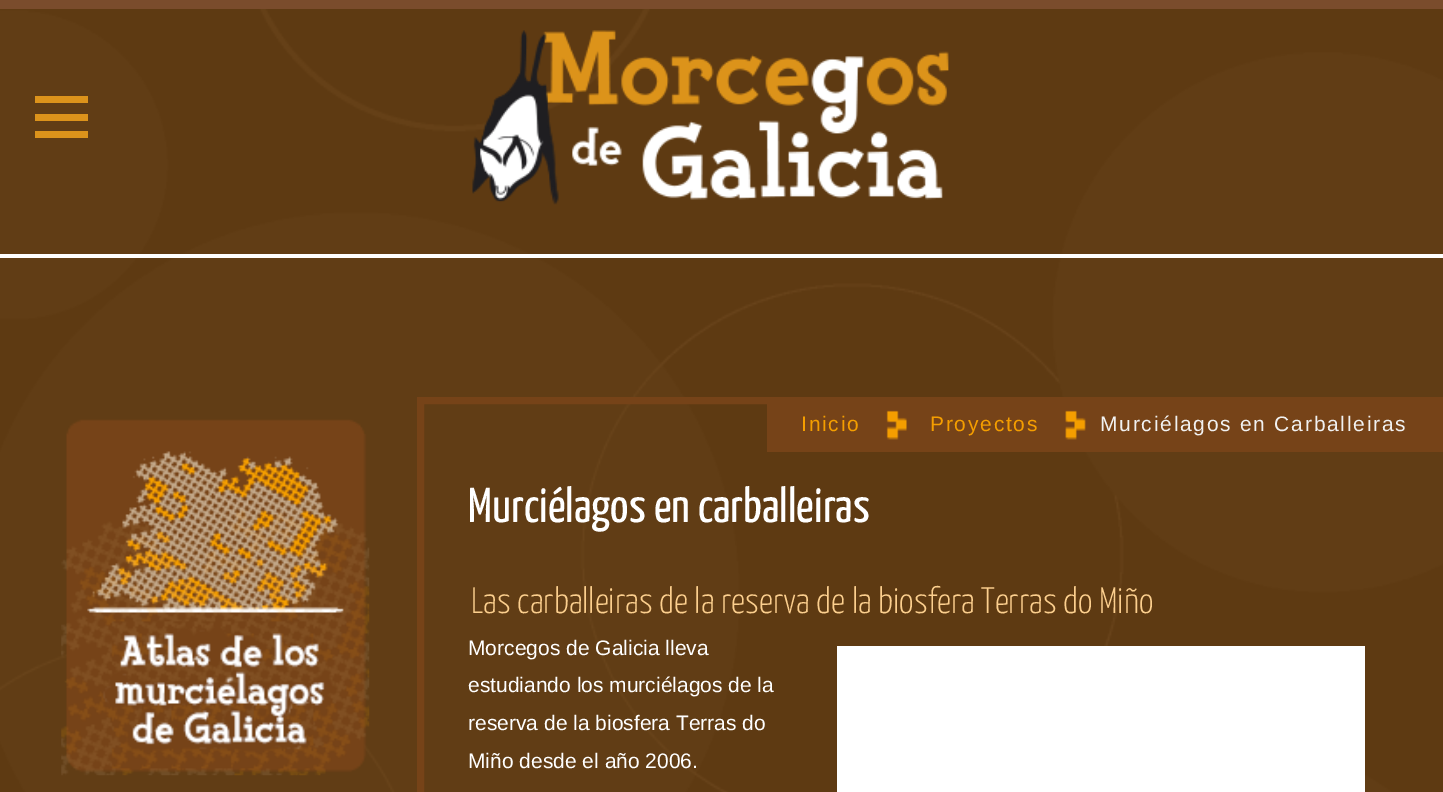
%!PS-Adobe-3.0
%%BoundingBox: 0 0 1443 792
%%LanguageLevel: 3
%%Pages: 1
%%EndComments
%%BeginProlog
/setink { 3 { 255 div 3 1 roll } repeat setrgbcolor } def
/usefont { [ exch dup neg 0 0 3 -1 roll 0 0 ] selectfont } def
/drawtext { setink usefont moveto show } def
/fillbox { setink rectfill } def
/drawimage { 5 dict begin { /h /w /y /x /name } { exch def } forall
  gsave x y translate w h scale
  w h 8 [w 0 0 h 0 0] name (r) file false 3 colorimage grestore end } def
%%EndProlog
%%BeginSetup
<< /PageSize [1443 792] >> setpagedevice
%%EndSetup
%%Page: 1 1
0 792 translate 1 -1 scale
4 setmiterlimit
0 0 1443 792 255 255 255 fillbox
(assets/img1.rgb) 0 9 1443 783 drawimage
0 0 1443 9 122 76 44 fillbox
0 254 1443 4 255 255 255 fillbox
35 114 53 7 220 147 27 fillbox
35 96 53 7 220 147 27 fillbox
35 131 53 7 220 147 27 fillbox
(assets/img2.rgb) 472 30 477 175 drawimage
(assets/img3.rgb) 61 419 309 357 drawimage
118 67 24 setink
7 setlinewidth
420.5 400.5 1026 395 rectstroke
767 404 676 48 118 67 24 fillbox
/LiberationSans-Regular 21 usefont
244 158 0 setink
801 431 moveto 1.75 0 (Inicio) ashow
(assets/img4.rgb) 886 410 21 30 drawimage
930 431 moveto 1.75 0 (Proyectos) ashow
(assets/img5.rgb) 1065 410 21 30 drawimage
241 241 241 setink
1100 431 moveto 1.75 0 (Murciélagos en Carballeiras) ashow
(Murciélagos en carballeiras) 468 522 /YanoneKaffeesatz-Regular 49 255 255 255 drawtext
(Las carballeiras de la reserva de la biosfera Terras do Miño) 471 613 /YanoneKaffeesatz-Light 36.75 252 207 142 drawtext
(Morcegos de Galicia lleva) 468 655 /LiberationSans-Regular 21 255 255 255 drawtext
(estudiando los murciélagos de la) 468 692 /LiberationSans-Regular 21 255 255 255 drawtext
(reserva de la biosfera Terras do) 468 730 /LiberationSans-Regular 21 255 255 255 drawtext
(Miño desde el año 2006.) 468 768 /LiberationSans-Regular 21 255 255 255 drawtext
837 646 528 146 255 255 255 fillbox
showpage
%%EOF
